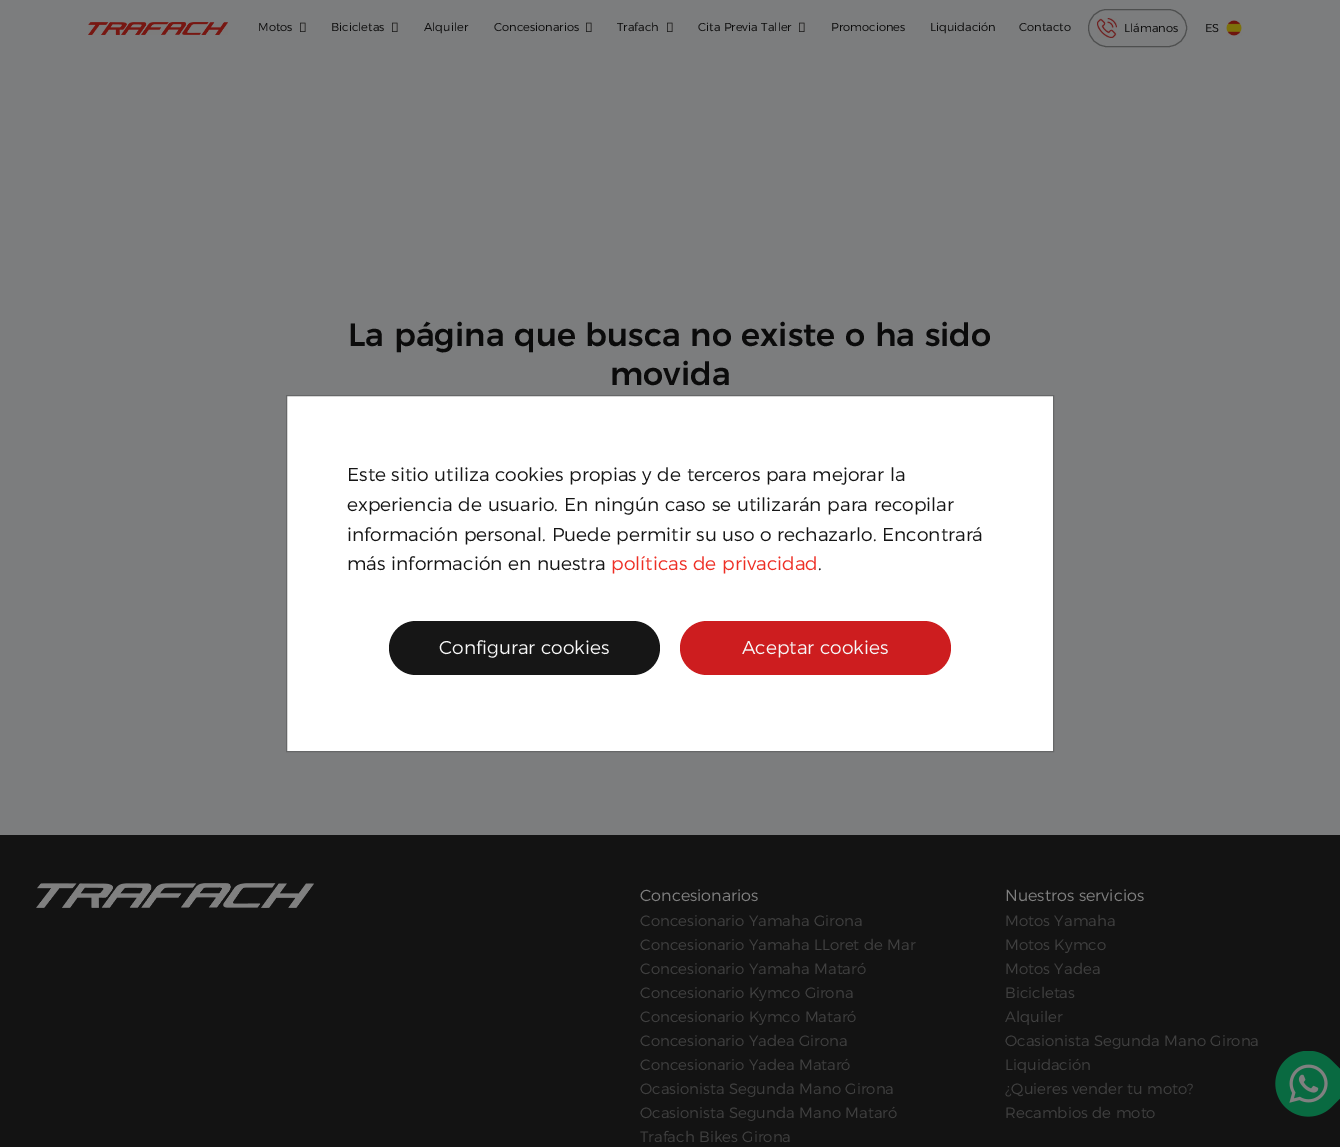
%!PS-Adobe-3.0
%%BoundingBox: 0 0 1340 1147
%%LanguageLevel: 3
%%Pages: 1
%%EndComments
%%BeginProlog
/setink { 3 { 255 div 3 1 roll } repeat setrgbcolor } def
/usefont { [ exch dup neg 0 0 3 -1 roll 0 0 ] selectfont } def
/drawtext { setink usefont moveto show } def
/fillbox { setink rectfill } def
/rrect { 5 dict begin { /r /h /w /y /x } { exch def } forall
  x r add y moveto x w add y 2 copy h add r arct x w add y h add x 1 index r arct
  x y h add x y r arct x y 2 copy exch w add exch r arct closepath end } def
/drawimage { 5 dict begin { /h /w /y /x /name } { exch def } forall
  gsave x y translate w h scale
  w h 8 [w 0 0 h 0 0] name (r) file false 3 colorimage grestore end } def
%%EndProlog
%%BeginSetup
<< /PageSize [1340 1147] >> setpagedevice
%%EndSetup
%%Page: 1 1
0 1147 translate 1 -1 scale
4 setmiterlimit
0 0 1340 1147 124 125 126 fillbox
(assets/img1.rgb) 88 22 140 13 drawimage
(Motos) 258 31 /Montserrat-Light 11.5 11 11 11 drawtext
(assets/img2.rgb) 300 22 6 10 drawimage
(Bicicletas) 331 31 /Montserrat-Light 11.5 11 11 11 drawtext
(assets/img2.rgb) 392 22 6 10 drawimage
(Alquiler) 424 31 /Montserrat-Light 11.5 11 11 11 drawtext
(Concesionarios) 494 31 /Montserrat-Light 11.5 11 11 11 drawtext
(assets/img2.rgb) 586 22 6 10 drawimage
(Trafach) 617 31 /Montserrat-Light 11.5 11 11 11 drawtext
(assets/img2.rgb) 667 22 6 10 drawimage
(Cita Previa Taller) 698 31 /Montserrat-Light 11.5 11 11 11 drawtext
(assets/img2.rgb) 799 22 6 10 drawimage
(Promociones) 831 31 /Montserrat-Light 11.5 11 11 11 drawtext
(Liquidación) 930 31 /Montserrat-Light 11.5 11 11 11 drawtext
(Contacto) 1019 31 /Montserrat-Light 11.5 11 11 11 drawtext
78 79 79 setink
1088.5 9.5 98 37 18.5 rrect stroke
(assets/img3.rgb) 1097 18 20 20 drawimage
(Llámanos) 1124 32 /Montserrat-Light 11.5 11 11 11 drawtext
(ES) 1205 32 /Montserrat-Light 11.5 11 11 11 drawtext
(assets/img4.rgb) 1226 20 16 16 drawimage
(La página que busca no existe o ha sido) 348 346 /Montserrat-Medium 32 11 11 11 drawtext
(movida) 610 385 /Montserrat-Medium 32 11 11 11 drawtext
0 835 1340 312 19 19 19 fillbox
(assets/img5.rgb) 36 883 278 25 drawimage
(Concesionarios) 640 901 /Montserrat-Light 16 128 128 128 drawtext
(Concesionario Yamaha Girona) 640 926 /Montserrat-Light 15 64 64 64 drawtext
(Concesionario Yamaha LLoret de Mar) 640 950 /Montserrat-Light 15 64 64 64 drawtext
(Concesionario Yamaha Mataró) 640 974 /Montserrat-Light 15 64 64 64 drawtext
(Concesionario Kymco Girona) 640 998 /Montserrat-Light 15 64 64 64 drawtext
(Concesionario Kymco Mataró) 640 1022 /Montserrat-Light 15 64 64 64 drawtext
(Concesionario Yadea Girona) 640 1046 /Montserrat-Light 15 64 64 64 drawtext
(Concesionario Yadea Mataró) 640 1070 /Montserrat-Light 15 64 64 64 drawtext
(Ocasionista Segunda Mano Girona) 640 1094 /Montserrat-Light 15 64 64 64 drawtext
(Ocasionista Segunda Mano Mataró) 640 1118 /Montserrat-Light 15 64 64 64 drawtext
(Trafach Bikes Girona) 640 1142 /Montserrat-Light 15 64 64 64 drawtext
(Nuestros servicios) 1005 901 /Montserrat-Light 16 128 128 128 drawtext
(Motos Yamaha) 1005 926 /Montserrat-Light 15 64 64 64 drawtext
(Motos Kymco) 1005 950 /Montserrat-Light 15 64 64 64 drawtext
(Motos Yadea) 1005 974 /Montserrat-Light 15 64 64 64 drawtext
(Bicicletas) 1005 998 /Montserrat-Light 15 64 64 64 drawtext
(Alquiler) 1005 1022 /Montserrat-Light 15 64 64 64 drawtext
(Ocasionista Segunda Mano Girona) 1005 1046 /Montserrat-Light 15 64 64 64 drawtext
(Liquidación) 1005 1070 /Montserrat-Light 15 64 64 64 drawtext
(¿Quieres vender tu moto?) 1005 1094 /Montserrat-Light 15 64 64 64 drawtext
(Recambios de moto) 1005 1118 /Montserrat-Light 15 64 64 64 drawtext
(assets/img6.rgb) 1275 1051 65 66 drawimage
255 255 255 setink
286.5 395.5 moveto 1053.5 395.5 lineto 1053.5 751.5 lineto 286.5 751.5 lineto closepath gsave fill grestore
102 103 104 setink
stroke
(Este sitio utiliza cookies propias y de terceros para mejorar la) 347 481 /Montserrat-Light 18.65 22 22 22 drawtext
(experiencia de usuario. En ningún caso se utilizarán para recopilar) 347 511 /Montserrat-Light 18.65 22 22 22 drawtext
(información personal. Puede permitir su uso o rechazarlo. Encontrará) 347 541 /Montserrat-Light 18.65 22 22 22 drawtext
(más información en nuestra) 347 570 /Montserrat-Light 18.65 22 22 22 drawtext
(políticas de privacidad) 611 570 /Montserrat-Light 18.65 238 46 36 drawtext
(.) 818 570 /Montserrat-Light 18.65 22 22 22 drawtext
389 621 271 54 27 rrect fill
(Configurar cookies) 439 654 /Montserrat-Light 18.65 247 247 247 drawtext
205 29 31 setink
680 621 271 54 27 rrect fill
(Aceptar cookies) 742 654 /Montserrat-Light 18.65 247 247 247 drawtext
showpage
%%EOF
